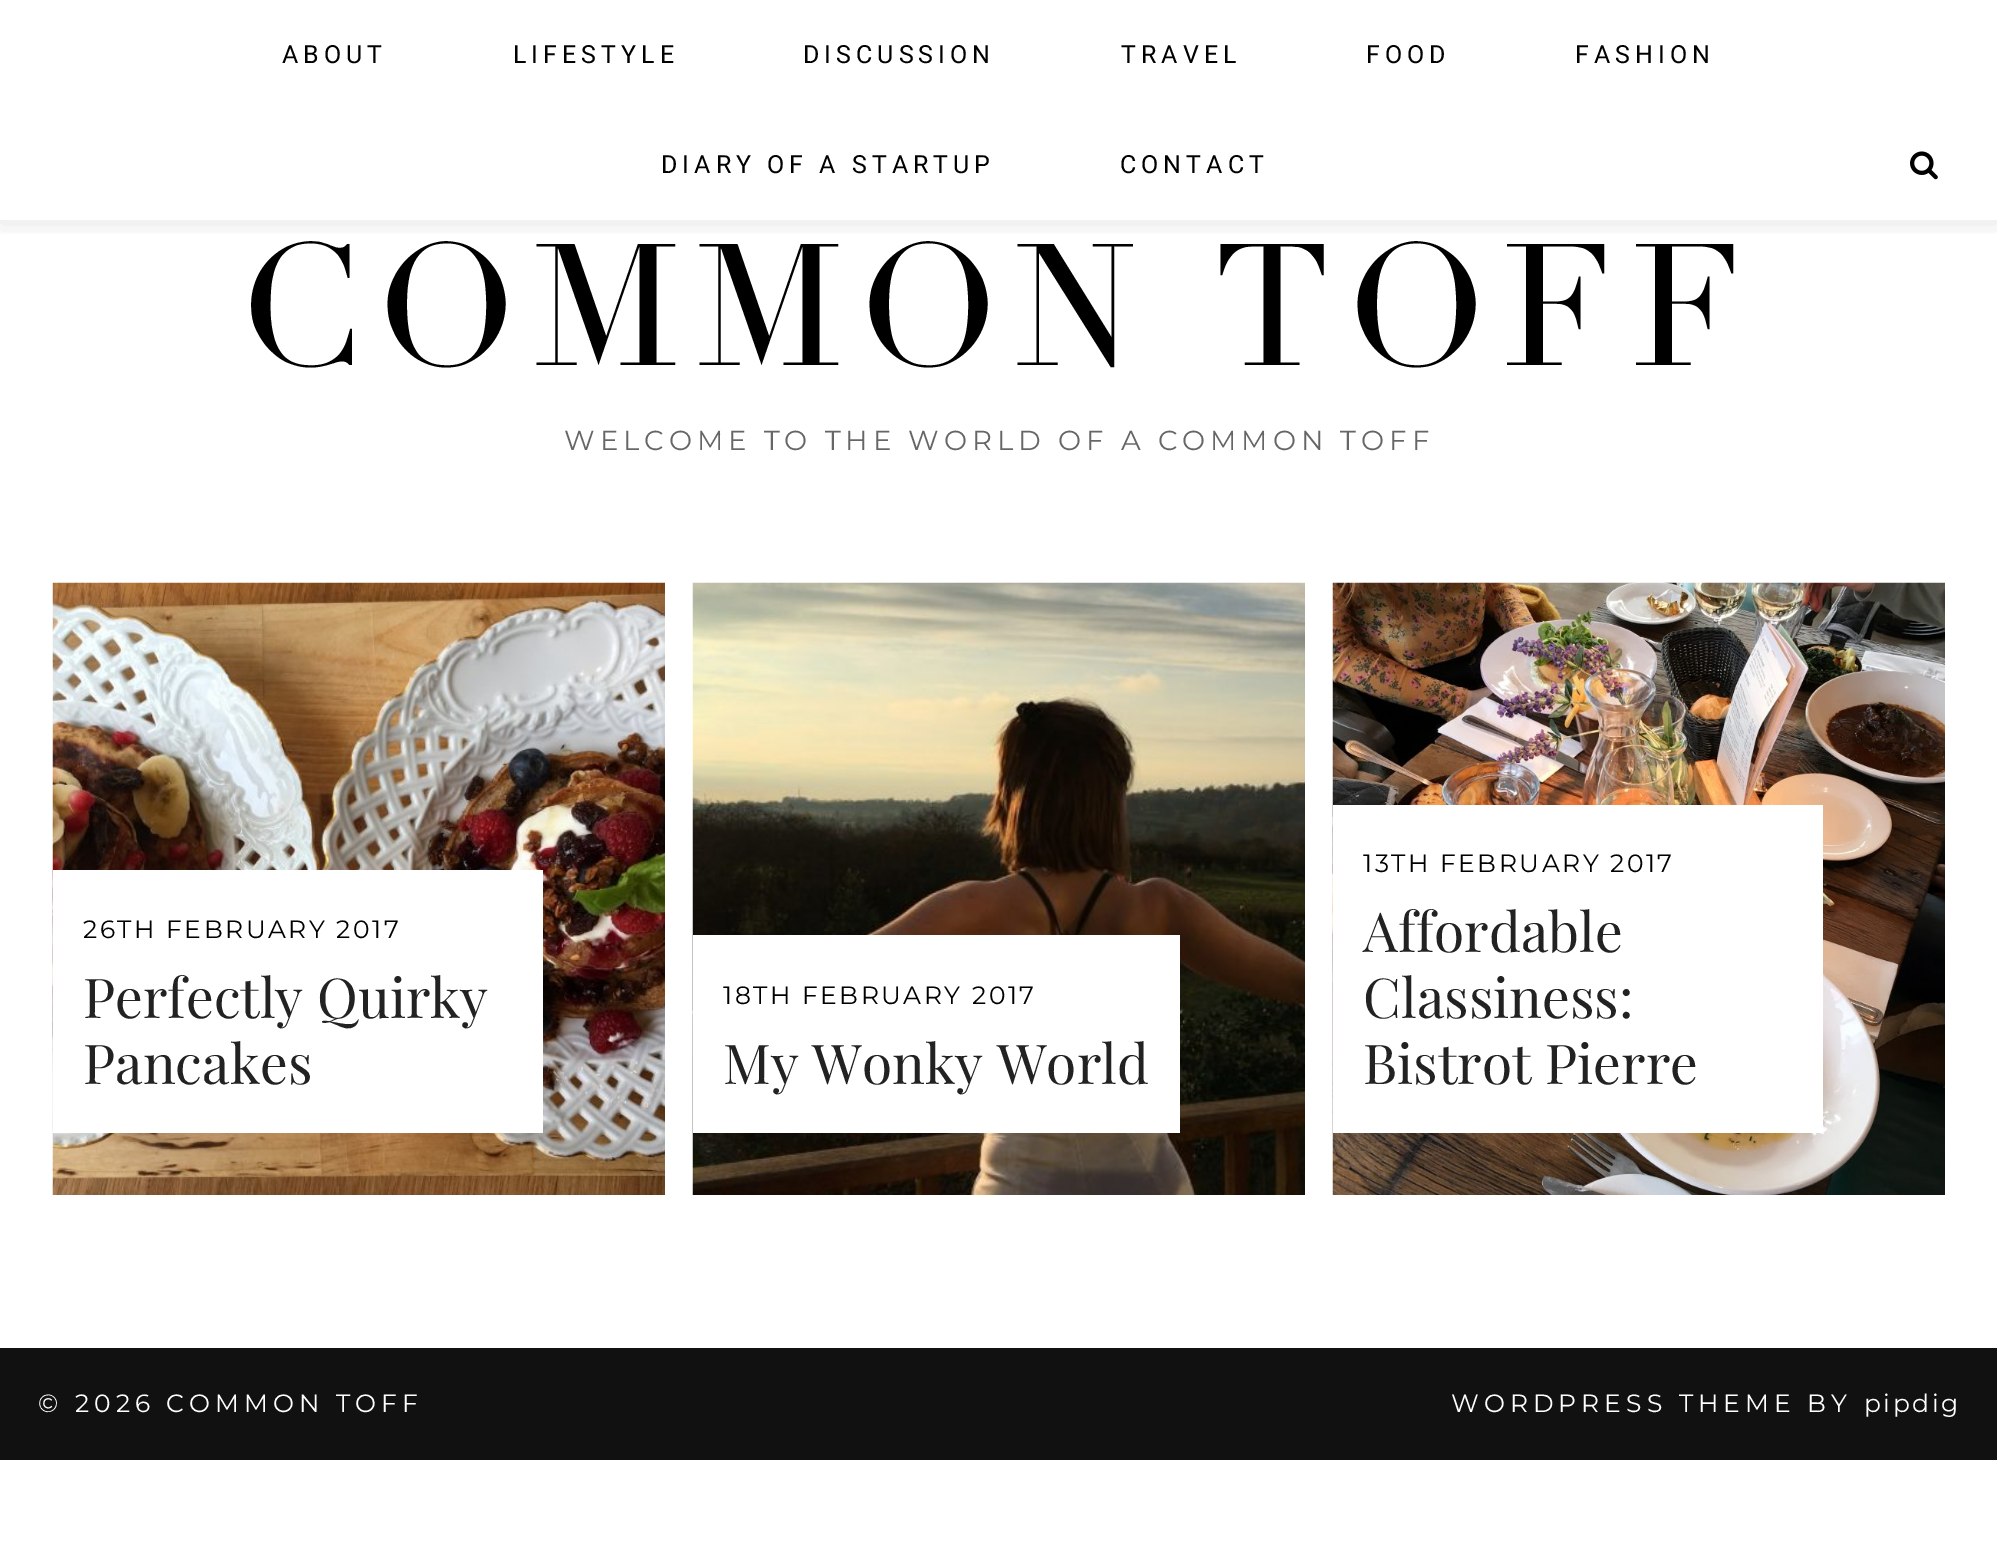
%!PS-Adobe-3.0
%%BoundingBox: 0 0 1997 1563
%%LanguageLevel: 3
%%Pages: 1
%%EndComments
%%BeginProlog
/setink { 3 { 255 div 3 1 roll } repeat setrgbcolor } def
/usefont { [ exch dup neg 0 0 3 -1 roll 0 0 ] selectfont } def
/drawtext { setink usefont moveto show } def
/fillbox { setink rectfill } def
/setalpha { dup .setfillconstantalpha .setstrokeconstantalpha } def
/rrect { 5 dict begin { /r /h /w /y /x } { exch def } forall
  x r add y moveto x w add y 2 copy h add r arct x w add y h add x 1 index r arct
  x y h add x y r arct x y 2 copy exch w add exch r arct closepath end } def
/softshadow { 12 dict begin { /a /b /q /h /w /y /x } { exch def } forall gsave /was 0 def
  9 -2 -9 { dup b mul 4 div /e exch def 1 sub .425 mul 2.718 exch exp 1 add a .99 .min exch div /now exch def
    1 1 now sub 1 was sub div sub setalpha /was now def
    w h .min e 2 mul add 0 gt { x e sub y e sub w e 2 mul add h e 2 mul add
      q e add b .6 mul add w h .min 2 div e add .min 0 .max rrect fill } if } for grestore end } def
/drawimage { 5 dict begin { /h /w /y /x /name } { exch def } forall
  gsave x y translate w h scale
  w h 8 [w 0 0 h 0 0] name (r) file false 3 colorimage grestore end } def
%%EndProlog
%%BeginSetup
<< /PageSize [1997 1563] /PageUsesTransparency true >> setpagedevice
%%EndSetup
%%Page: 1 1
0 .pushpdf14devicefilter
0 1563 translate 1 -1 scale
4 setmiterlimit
0 0 1997 1563 255 255 255 fillbox
gsave
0 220 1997 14 rectclip
0 0 0 setink
0 3 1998 220 0 12.5 0.1 softshadow
grestore
/Roboto-Regular 25 usefont
0 0 0 setink
282 63 moveto 5 0 (ABOUT) ashow
513 63 moveto 5 0 (LIFESTYLE) ashow
803 63 moveto 5 0 (DISCUSSION) ashow
1121 63 moveto 5 0 (TRAVEL) ashow
1366 63 moveto 5 0 (FOOD) ashow
1575 63 moveto 5 0 (FASHION) ashow
661 173 moveto 5 0 (DIARY OF A STARTUP) ashow
1120 173 moveto 5 0 (CONTACT) ashow
(assets/img1.rgb) 1910 151 28 29 drawimage
/Didot-Regular 170 usefont
238 365 moveto 15 0 (COMMON TOFF) ashow
/Montserrat-Thin 27.5 usefont
102 102 102 setink
564 450 moveto 5 0 (WELCOME TO THE WORLD OF A COMMON TOFF) ashow
(assets/img2.rgb) 52 582 613 613 drawimage
53 870 490 263 255 255 255 fillbox
/Montserrat-Thin 25 usefont
0 0 0 setink
83 938 moveto 2.5 0 (26TH FEBRUARY 2017) ashow
(Perfectly Quirky) 83 1018 /PlayfairDisplay-Regular 55 34 34 34 drawtext
(Pancakes) 83 1084 /PlayfairDisplay-Regular 55 34 34 34 drawtext
(assets/img3.rgb) 692 582 613 613 drawimage
693 935 487 198 255 255 255 fillbox
/Montserrat-Thin 25 usefont
0 0 0 setink
723 1004 moveto 2.5 0 (18TH FEBRUARY 2017) ashow
(My Wonky World) 723 1084 /PlayfairDisplay-Regular 55 34 34 34 drawtext
(assets/img4.rgb) 1332 582 613 613 drawimage
1333 805 490 328 255 255 255 fillbox
/Montserrat-Thin 25 usefont
0 0 0 setink
1363 872 moveto 2.5 0 (13TH FEBRUARY 2017) ashow
(Affordable) 1363 952 /PlayfairDisplay-Regular 55 34 34 34 drawtext
(Classiness:) 1363 1018 /PlayfairDisplay-Regular 55 34 34 34 drawtext
(Bistrot Pierre) 1363 1084 /PlayfairDisplay-Regular 55 34 34 34 drawtext
0 1348 1997 112 17 17 17 fillbox
/Montserrat-Thin 25 usefont
255 255 255 setink
38 1412 moveto 5 0 (© 2026 COMMON TOFF) ashow
1451 1412 moveto 5 0 (WORDPRESS THEME BY) ashow
1864 1412 moveto 2.5 0 (pipdig) ashow
.poppdf14devicefilter showpage
%%EOF
